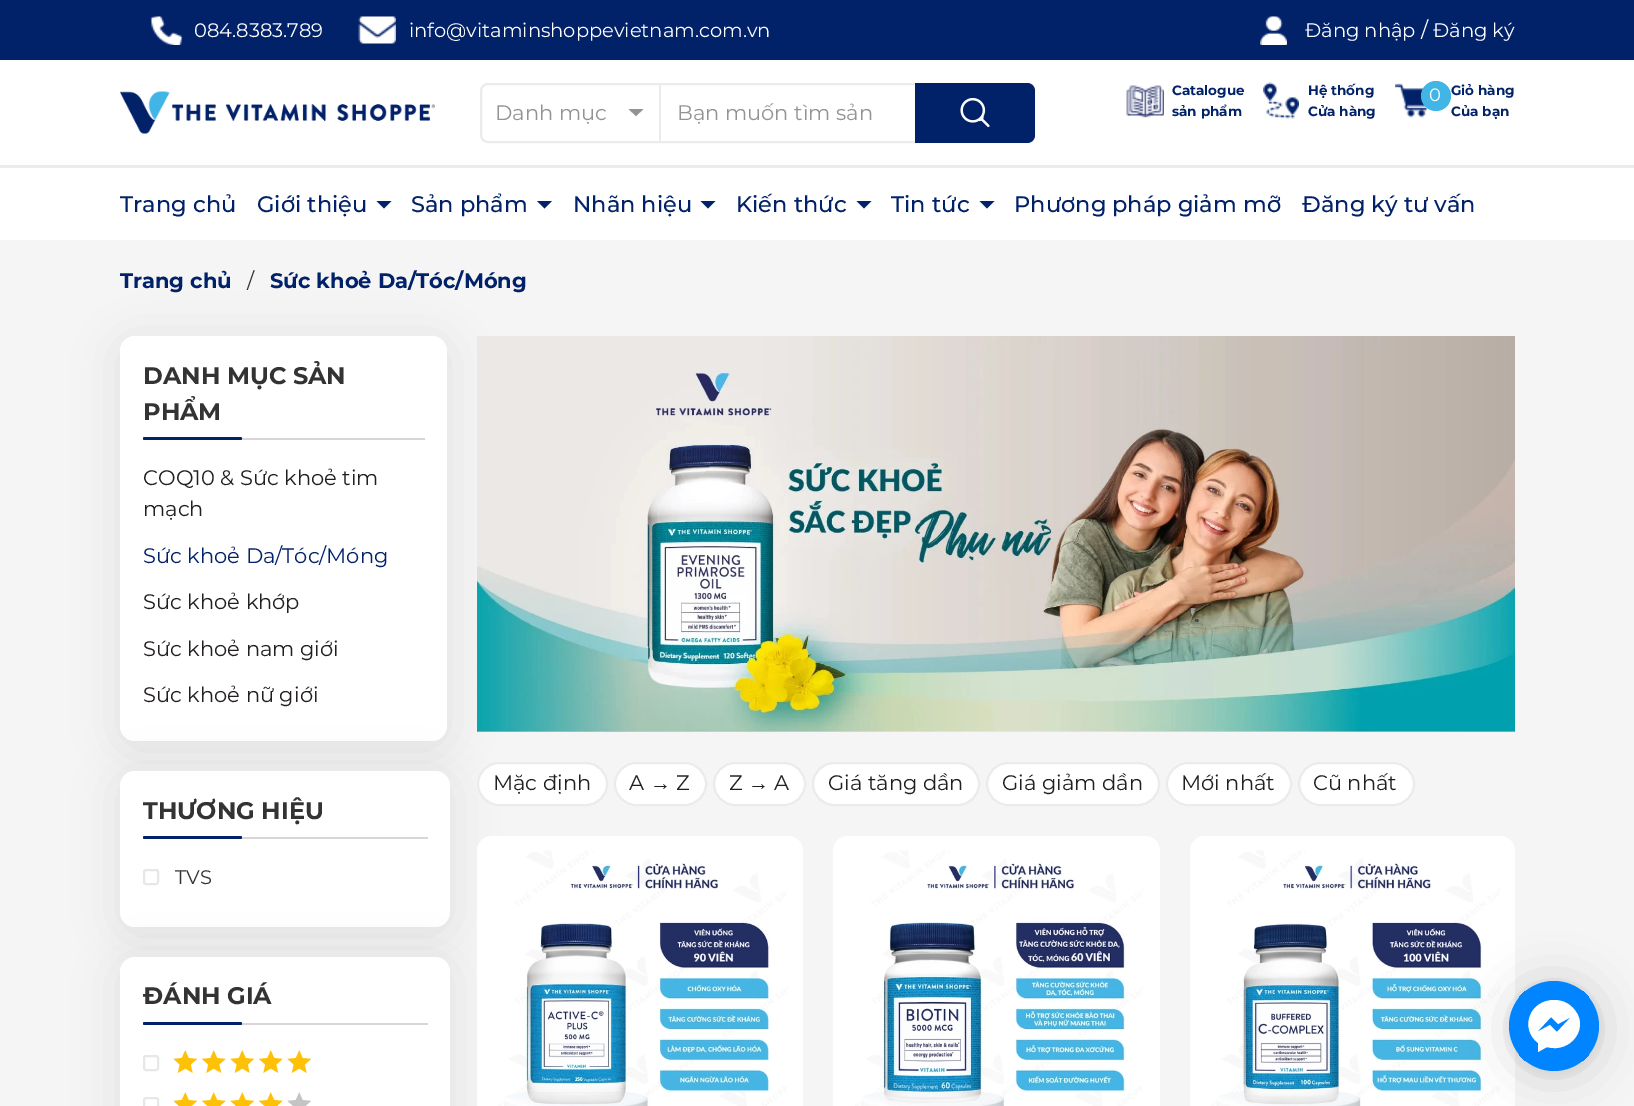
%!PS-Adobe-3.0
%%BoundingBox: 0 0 1634 1106
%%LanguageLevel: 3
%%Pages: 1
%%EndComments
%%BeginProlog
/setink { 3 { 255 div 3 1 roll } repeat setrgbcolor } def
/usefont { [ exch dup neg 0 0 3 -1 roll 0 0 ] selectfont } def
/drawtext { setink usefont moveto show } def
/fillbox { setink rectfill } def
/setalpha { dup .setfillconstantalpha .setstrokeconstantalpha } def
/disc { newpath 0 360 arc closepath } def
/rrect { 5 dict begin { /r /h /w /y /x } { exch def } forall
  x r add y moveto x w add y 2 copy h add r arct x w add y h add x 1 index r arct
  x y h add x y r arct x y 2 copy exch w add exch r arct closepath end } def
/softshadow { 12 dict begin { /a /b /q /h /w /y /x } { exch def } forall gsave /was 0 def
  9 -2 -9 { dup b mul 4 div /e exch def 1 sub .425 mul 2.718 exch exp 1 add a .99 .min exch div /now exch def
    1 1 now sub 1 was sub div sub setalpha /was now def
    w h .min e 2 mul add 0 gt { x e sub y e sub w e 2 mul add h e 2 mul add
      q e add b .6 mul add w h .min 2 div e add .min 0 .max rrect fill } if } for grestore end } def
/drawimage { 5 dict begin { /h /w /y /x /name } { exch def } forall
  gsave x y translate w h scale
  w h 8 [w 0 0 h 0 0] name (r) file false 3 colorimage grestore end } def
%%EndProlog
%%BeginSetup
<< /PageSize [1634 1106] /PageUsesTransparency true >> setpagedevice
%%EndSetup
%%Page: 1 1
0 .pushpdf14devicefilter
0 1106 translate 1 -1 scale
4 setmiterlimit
0 0 1634 1106 255 255 255 fillbox
0 0 1634 60 1 33 105 fillbox
(assets/img1.rgb) 150 16 33 29 drawimage
(084.8383.789) 194 37 /Montserrat-Regular 19.5 255 255 255 drawtext
(assets/img2.rgb) 358 16 38 28 drawimage
(info@vitaminshoppevietnam.com.vn) 409 37 /Montserrat-Regular 19.5 255 255 255 drawtext
(assets/img3.rgb) 1260 16 27 29 drawimage
(Đăng nhập) 1305 37 /Montserrat-Regular 19.5 255 255 255 drawtext
(/) 1421 37 /Montserrat-Regular 21 255 255 255 drawtext
(Đăng ký) 1433 37 /Montserrat-Regular 19.5 255 255 255 drawtext
(assets/img4.rgb) 120 91 315 43 drawimage
235 235 235 setink
2 setlinewidth
481 84 553 58 7 rrect stroke
659 83 2 60 235 235 235 fillbox
(Danh mục) 495 120 /Montserrat-Regular 21 147 147 147 drawtext
628.5 109 moveto 643.5 109 lineto 636 116 lineto closepath fill
(Bạn muốn tìm sản) 677 120 /Montserrat-Regular 21 147 147 147 drawtext
1 33 105 setink
915 83 moveto 1027 83 lineto 1031.5 83 1035 86.5 1035 91 curveto 1035 135 lineto 1035 139.5 1031.5 143 1027 143 curveto 915 143 lineto closepath fill
(assets/img5.rgb) 960 98 30 30 drawimage
(assets/img6.rgb) 1126 85 38 33 drawimage
(Catalogue) 1172 95 /Montserrat-Bold 13.5 1 33 105 drawtext
(sản phẩm) 1172 116 /Montserrat-Bold 13.5 1 33 105 drawtext
(assets/img7.rgb) 1263 82 36 37 drawimage
(Hệ thống) 1308 95 /Montserrat-Bold 13.5 1 33 105 drawtext
(Cửa hàng) 1308 116 /Montserrat-Bold 13.5 1 33 105 drawtext
(assets/img8.rgb) 1395 83 33 35 drawimage
65 182 230 setink
1436 96 15 disc fill
(0) 1429 101 /Montserrat-Regular 18 255 255 255 drawtext
(Giỏ hàng) 1451 95 /Montserrat-Bold 13.5 1 33 105 drawtext
(Của bạn) 1451 116 /Montserrat-Bold 13.5 1 33 105 drawtext
0 165 1634 3 235 235 235 fillbox
(Trang chủ) 120 212 /Montserrat-Medium 22.5 1 33 105 drawtext
(Giới thiệu) 257 212 /Montserrat-Medium 22.5 1 33 105 drawtext
376.5 201 moveto 391.5 201 lineto 384 208.5 lineto closepath fill
(Sản phẩm) 411 212 /Montserrat-Medium 22.5 1 33 105 drawtext
537 201 moveto 552 201 lineto 544.5 208.5 lineto closepath fill
(Nhãn hiệu) 573 212 /Montserrat-Medium 22.5 1 33 105 drawtext
700.5 201 moveto 715.5 201 lineto 708 208.5 lineto closepath fill
(Kiến thức) 736 212 /Montserrat-Medium 22.5 1 33 105 drawtext
856.5 201 moveto 871.5 201 lineto 864 208.5 lineto closepath fill
(Tin tức) 891 212 /Montserrat-Medium 22.5 1 33 105 drawtext
979.5 201 moveto 994.5 201 lineto 987 208.5 lineto closepath fill
(Phương pháp giảm mỡ) 1014 212 /Montserrat-Medium 22.5 1 33 105 drawtext
(Đăng ký tư vấn) 1302 212 /Montserrat-Medium 22.5 1 33 105 drawtext
0 240 1634 866 245 245 245 fillbox
(Trang chủ) 120 288 /Montserrat-Bold 21 1 33 105 drawtext
(/) 247 288 /Montserrat-Regular 21 51 51 51 drawtext
(Sức khoẻ Da/Tóc/Móng) 270 288 /Montserrat-Bold 21 1 33 105 drawtext
19 28 25 setink
120 342 327 405 15 22.5 0.1 softshadow
255 255 255 setink
120 336 327 405 15 rrect fill
143 438 282 2 216 213 213 fillbox
(DANH MỤC SẢN) 143 384 /Montserrat-Bold 24 51 51 51 drawtext
(PHẨM) 143 420 /Montserrat-Bold 24 51 51 51 drawtext
1 33 105 setink
143 437 99 3 1.5 rrect fill
(COQ10 & Sức khoẻ tim) 143 485 /Montserrat-Regular 21 35 31 32 drawtext
(mạch) 143 516 /Montserrat-Regular 21 35 31 32 drawtext
(Sức khoẻ Da/Tóc/Móng) 143 563 /Montserrat-Regular 21 1 33 105 drawtext
(Sức khoẻ khớp) 143 609 /Montserrat-Regular 21 35 31 32 drawtext
(Sức khoẻ nam giới) 143 656 /Montserrat-Regular 21 35 31 32 drawtext
(Sức khoẻ nữ giới) 143 702 /Montserrat-Regular 21 35 31 32 drawtext
19 28 25 setink
120 777 330 156 15 22.5 0.1 softshadow
255 255 255 setink
120 771 330 156 15 rrect fill
143 837 285 2 216 213 213 fillbox
(THƯƠNG HIỆU) 143 819 /Montserrat-Bold 24 51 51 51 drawtext
1 33 105 setink
143 836 99 3 1.5 rrect fill
231 231 231 setink
144 870 14 14 2 rrect stroke
(TVS) 175 884 /Montserrat-Regular 19.5 51 51 51 drawtext
19 28 25 setink
120 963 330 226 15 22.5 0.1 softshadow
255 255 255 setink
120 957 330 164 15 rrect fill
143 1023 285 2 216 213 213 fillbox
(ĐÁNH GIÁ) 143 1004 /Montserrat-Bold 24 51 51 51 drawtext
1 33 105 setink
143 1022 99 3 1.5 rrect fill
231 231 231 setink
144 1056 14 14 2 rrect stroke
(assets/img9.rgb) 173 1050 139 23 drawimage
144 1098 14 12 2 rrect stroke
(assets/img10.rgb) 173 1092 138 14 drawimage
(assets/img11.rgb) 477 336 1038 396 drawimage
255 255 255 setink
478 763 129 42 21 rrect gsave fill grestore
235 235 235 setink
stroke
(Mặc định) 493 790 /Montserrat-Regular 21 35 31 32 drawtext
255 255 255 setink
615 763 91 42 21 rrect gsave fill grestore
235 235 235 setink
stroke
(A) 629 790 /Montserrat-Regular 21 35 31 32 drawtext
(→) 650 790 /LiberationSans-Regular 21 35 31 32 drawtext
(Z) 676 790 /Montserrat-Regular 21 35 31 32 drawtext
255 255 255 setink
714 763 91 42 21 rrect gsave fill grestore
235 235 235 setink
stroke
(Z) 729 790 /Montserrat-Regular 21 35 31 32 drawtext
(→) 748 790 /LiberationSans-Regular 21 35 31 32 drawtext
(A) 774 790 /Montserrat-Regular 21 35 31 32 drawtext
255 255 255 setink
813 763 166 42 21 rrect gsave fill grestore
235 235 235 setink
stroke
(Giá tăng dần) 828 790 /Montserrat-Regular 21 35 31 32 drawtext
255 255 255 setink
987 763 172 42 21 rrect gsave fill grestore
235 235 235 setink
stroke
(Giá giảm dần) 1002 790 /Montserrat-Regular 21 35 31 32 drawtext
255 255 255 setink
1167 763 124 42 21 rrect gsave fill grestore
235 235 235 setink
stroke
(Mới nhất) 1181 790 /Montserrat-Regular 21 35 31 32 drawtext
255 255 255 setink
1299 763 115 42 21 rrect gsave fill grestore
235 235 235 setink
stroke
(Cũ nhất) 1313 790 /Montserrat-Regular 21 35 31 32 drawtext
255 255 255 setink
477 836 326 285 15 rrect fill
(assets/img12.rgb) 498 850 289 256 drawimage
833 836 327 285 15 rrect fill
(assets/img13.rgb) 855 850 288 256 drawimage
1190 836 325 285 15 rrect fill
(assets/img14.rgb) 1211 850 289 256 drawimage
0 0 0 setink
1509 984 90 90 45 24 0.16 softshadow
1509 983 90 90 45 4.5 0.06 softshadow
0 132 255 setink
1554 1026 45 disc fill
gsave
1509 981 90 90 45 rrect clip newpath
1518 990 72 72 0 132 255 fillbox
grestore
255 255 255 setink
1554 1000 moveto 1530 1000 1519 1028 1538 1043 curveto 1538 1052 lineto 1547 1047 lineto 1571 1054 1592 1026 1572 1007 curveto 1567 1002 1561 1000 1554 1000 curveto closepath 1557 1032 moveto 1550 1025 lineto 1537 1032 lineto 1551 1017 lineto 1558 1024 lineto 1571 1017 lineto closepath fill
.poppdf14devicefilter showpage
%%EOF
